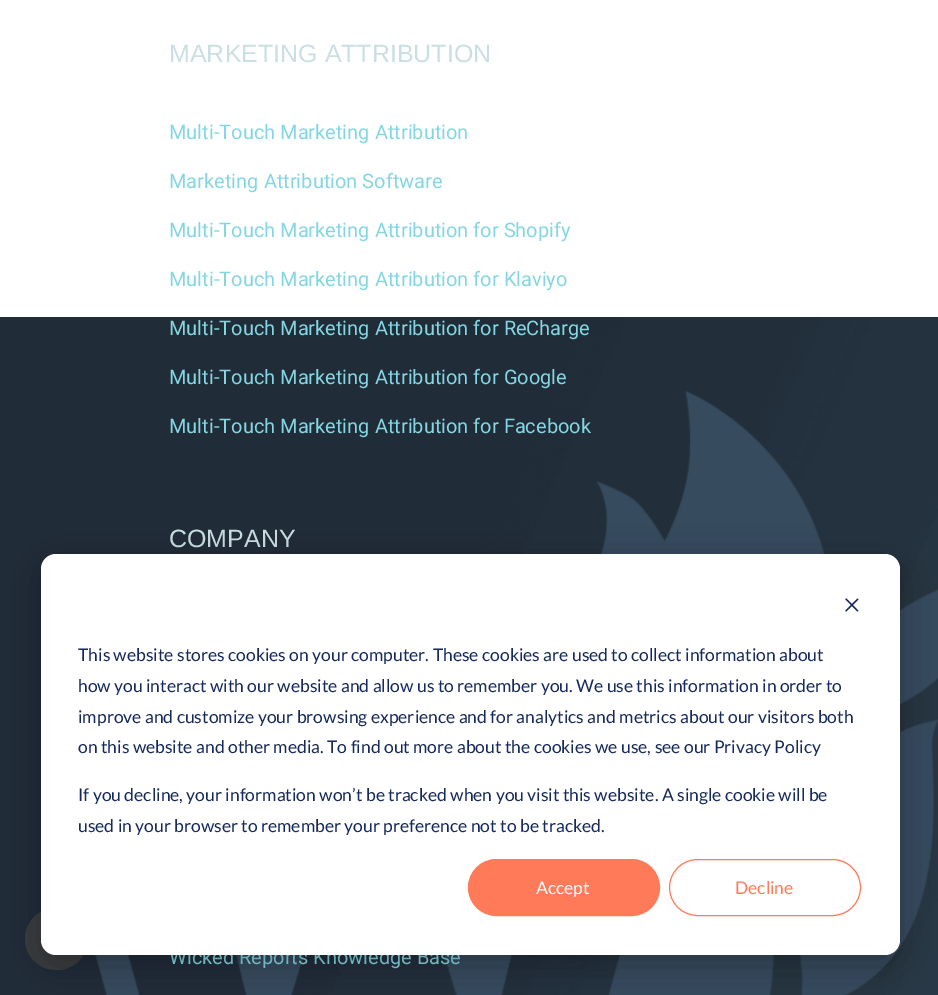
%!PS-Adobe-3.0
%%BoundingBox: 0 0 938 995
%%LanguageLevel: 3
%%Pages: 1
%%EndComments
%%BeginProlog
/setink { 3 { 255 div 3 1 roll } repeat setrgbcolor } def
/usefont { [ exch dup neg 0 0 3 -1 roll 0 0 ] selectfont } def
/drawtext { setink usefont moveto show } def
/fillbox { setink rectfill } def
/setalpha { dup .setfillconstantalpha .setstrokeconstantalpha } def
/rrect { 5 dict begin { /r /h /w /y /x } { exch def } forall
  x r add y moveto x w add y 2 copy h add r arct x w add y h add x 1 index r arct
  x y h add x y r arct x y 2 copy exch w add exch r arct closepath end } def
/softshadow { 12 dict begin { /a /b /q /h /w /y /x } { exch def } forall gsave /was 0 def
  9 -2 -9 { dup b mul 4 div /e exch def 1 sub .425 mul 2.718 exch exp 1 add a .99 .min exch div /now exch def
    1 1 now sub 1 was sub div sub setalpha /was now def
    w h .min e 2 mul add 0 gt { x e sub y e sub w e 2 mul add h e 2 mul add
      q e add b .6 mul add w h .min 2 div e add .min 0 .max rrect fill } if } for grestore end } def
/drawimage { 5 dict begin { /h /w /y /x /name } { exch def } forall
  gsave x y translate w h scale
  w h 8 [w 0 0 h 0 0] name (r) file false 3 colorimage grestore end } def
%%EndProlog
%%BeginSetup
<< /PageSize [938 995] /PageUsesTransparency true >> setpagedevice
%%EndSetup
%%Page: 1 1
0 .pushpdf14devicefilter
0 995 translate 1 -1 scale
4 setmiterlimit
0 0 938 995 255 255 255 fillbox
(assets/img1.rgb) 0 317 938 678 drawimage
57 61 64 setink
25 908 63 62 31 rrect fill
(MARKETING ATTRIBUTION) 169 62 /LiberationSans-Regular 25 202 223 226 drawtext
(Multi-Touch Marketing Attribution) 169 139 /Roboto-Regular 20 132 214 226 drawtext
(Marketing Attribution Software) 169 188 /Roboto-Regular 20 132 214 226 drawtext
(Multi-Touch Marketing Attribution for Shopify) 169 237 /Roboto-Regular 20 132 214 226 drawtext
(Multi-Touch Marketing Attribution for Klaviyo) 169 286 /Roboto-Regular 20 132 214 226 drawtext
(Multi-Touch Marketing Attribution for ReCharge) 169 335 /Roboto-Regular 20 132 214 226 drawtext
(Multi-Touch Marketing Attribution for Google) 169 384 /Roboto-Regular 20 132 214 226 drawtext
(Multi-Touch Marketing Attribution for Facebook) 169 433 /Roboto-Regular 20 132 214 226 drawtext
(COMPANY) 169 547 /LiberationSans-Regular 25 202 223 226 drawtext
(Wicked Reports Knowledge Base) 169 964 /Roboto-Regular 20 132 214 226 drawtext
0 0 0 setink
41 564 859 401 15 17.5 0.28 softshadow
255 255 255 setink
41 554 859 401 15 rrect fill
(assets/img2.rgb) 845 598 14 14 drawimage
(This website stores cookies on your computer. These cookies are used to collect information about) 78 661 /Lato-Regular 17.5 21 41 90 drawtext
(how you interact with our website and allow us to remember you. We use this information in order to) 78 692 /Lato-Regular 17.5 21 41 90 drawtext
(improve and customize your browsing experience and for analytics and metrics about our visitors both) 78 723 /Lato-Regular 17.5 21 41 90 drawtext
(on this website and other media. To find out more about the cookies we use, see our Privacy Policy) 78 753 /Lato-Regular 17.5 21 41 90 drawtext
(If you decline, your information won’t be tracked when you visit this website. A single cookie will be) 78 801 /Lato-Regular 17.5 21 41 90 drawtext
(used in your browser to remember your preference not to be tracked.) 78 832 /Lato-Regular 17.5 21 41 90 drawtext
255 122 89 setink
468.5 859.5 191 56 28 rrect gsave fill grestore
stroke
(Accept) 536 894 /Lato-Regular 17.5 255 255 255 drawtext
255 122 89 setink
669.5 859.5 191 56 28 rrect stroke
(Decline) 735 894 /Lato-Regular 17.5 255 122 89 drawtext
.poppdf14devicefilter showpage
%%EOF
